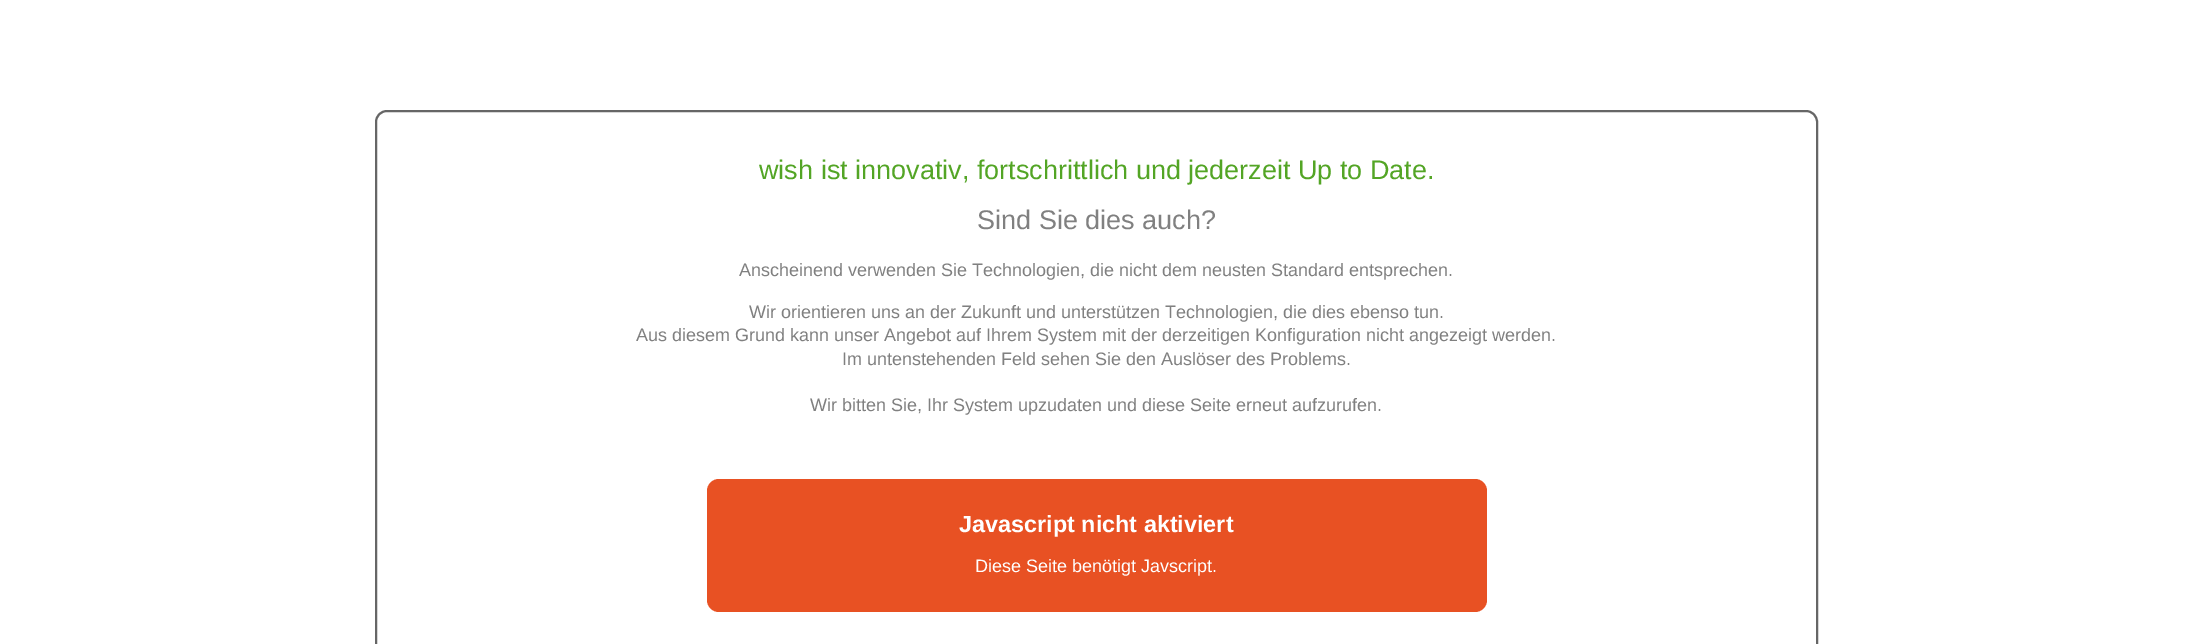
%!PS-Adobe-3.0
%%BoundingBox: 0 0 2192 644
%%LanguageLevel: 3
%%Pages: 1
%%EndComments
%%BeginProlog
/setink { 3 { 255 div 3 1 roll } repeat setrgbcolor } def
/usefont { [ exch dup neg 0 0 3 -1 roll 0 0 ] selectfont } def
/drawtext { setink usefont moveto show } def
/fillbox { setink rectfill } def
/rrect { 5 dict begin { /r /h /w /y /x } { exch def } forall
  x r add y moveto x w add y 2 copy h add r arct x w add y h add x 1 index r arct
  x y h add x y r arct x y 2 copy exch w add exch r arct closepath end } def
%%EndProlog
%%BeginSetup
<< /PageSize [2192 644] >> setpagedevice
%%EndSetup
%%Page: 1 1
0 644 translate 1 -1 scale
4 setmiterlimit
0 0 2192 644 255 255 255 fillbox
102 102 102 setink
2 setlinewidth
376 111 1441 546 11 rrect stroke
(wish ist innovativ, fortschrittlich und jederzeit Up to Date.) 759 179 /LiberationSans-Regular 27 83 165 37 drawtext
(Sind Sie dies auch?) 977 229 /LiberationSans-Regular 27 128 128 128 drawtext
(Anscheinend verwenden Sie Technologien, die nicht dem neusten Standard entsprechen.) 739 276 /LiberationSans-Regular 18 128 128 128 drawtext
(Wir orientieren uns an der Zukunft und unterstützen Technologien, die dies ebenso tun.) 749 318 /LiberationSans-Regular 18 128 128 128 drawtext
(Aus diesem Grund kann unser Angebot auf Ihrem System mit der derzeitigen Konfiguration nicht angezeigt werden.) 636 341 /LiberationSans-Regular 18 128 128 128 drawtext
(Im untenstehenden Feld sehen Sie den Auslöser des Problems.) 842 365 /LiberationSans-Regular 18 128 128 128 drawtext
(Wir bitten Sie, Ihr System upzudaten und diese Seite erneut aufzurufen.) 810 411 /LiberationSans-Regular 18 128 128 128 drawtext
232 81 35 setink
707 479 780 133 12 rrect fill
(Javascript nicht aktiviert) 959 532 /LiberationSans-Bold 23.4 255 255 255 drawtext
(Diese Seite benötigt Javscript.) 975 572 /LiberationSans-Regular 18 255 255 255 drawtext
showpage
%%EOF
